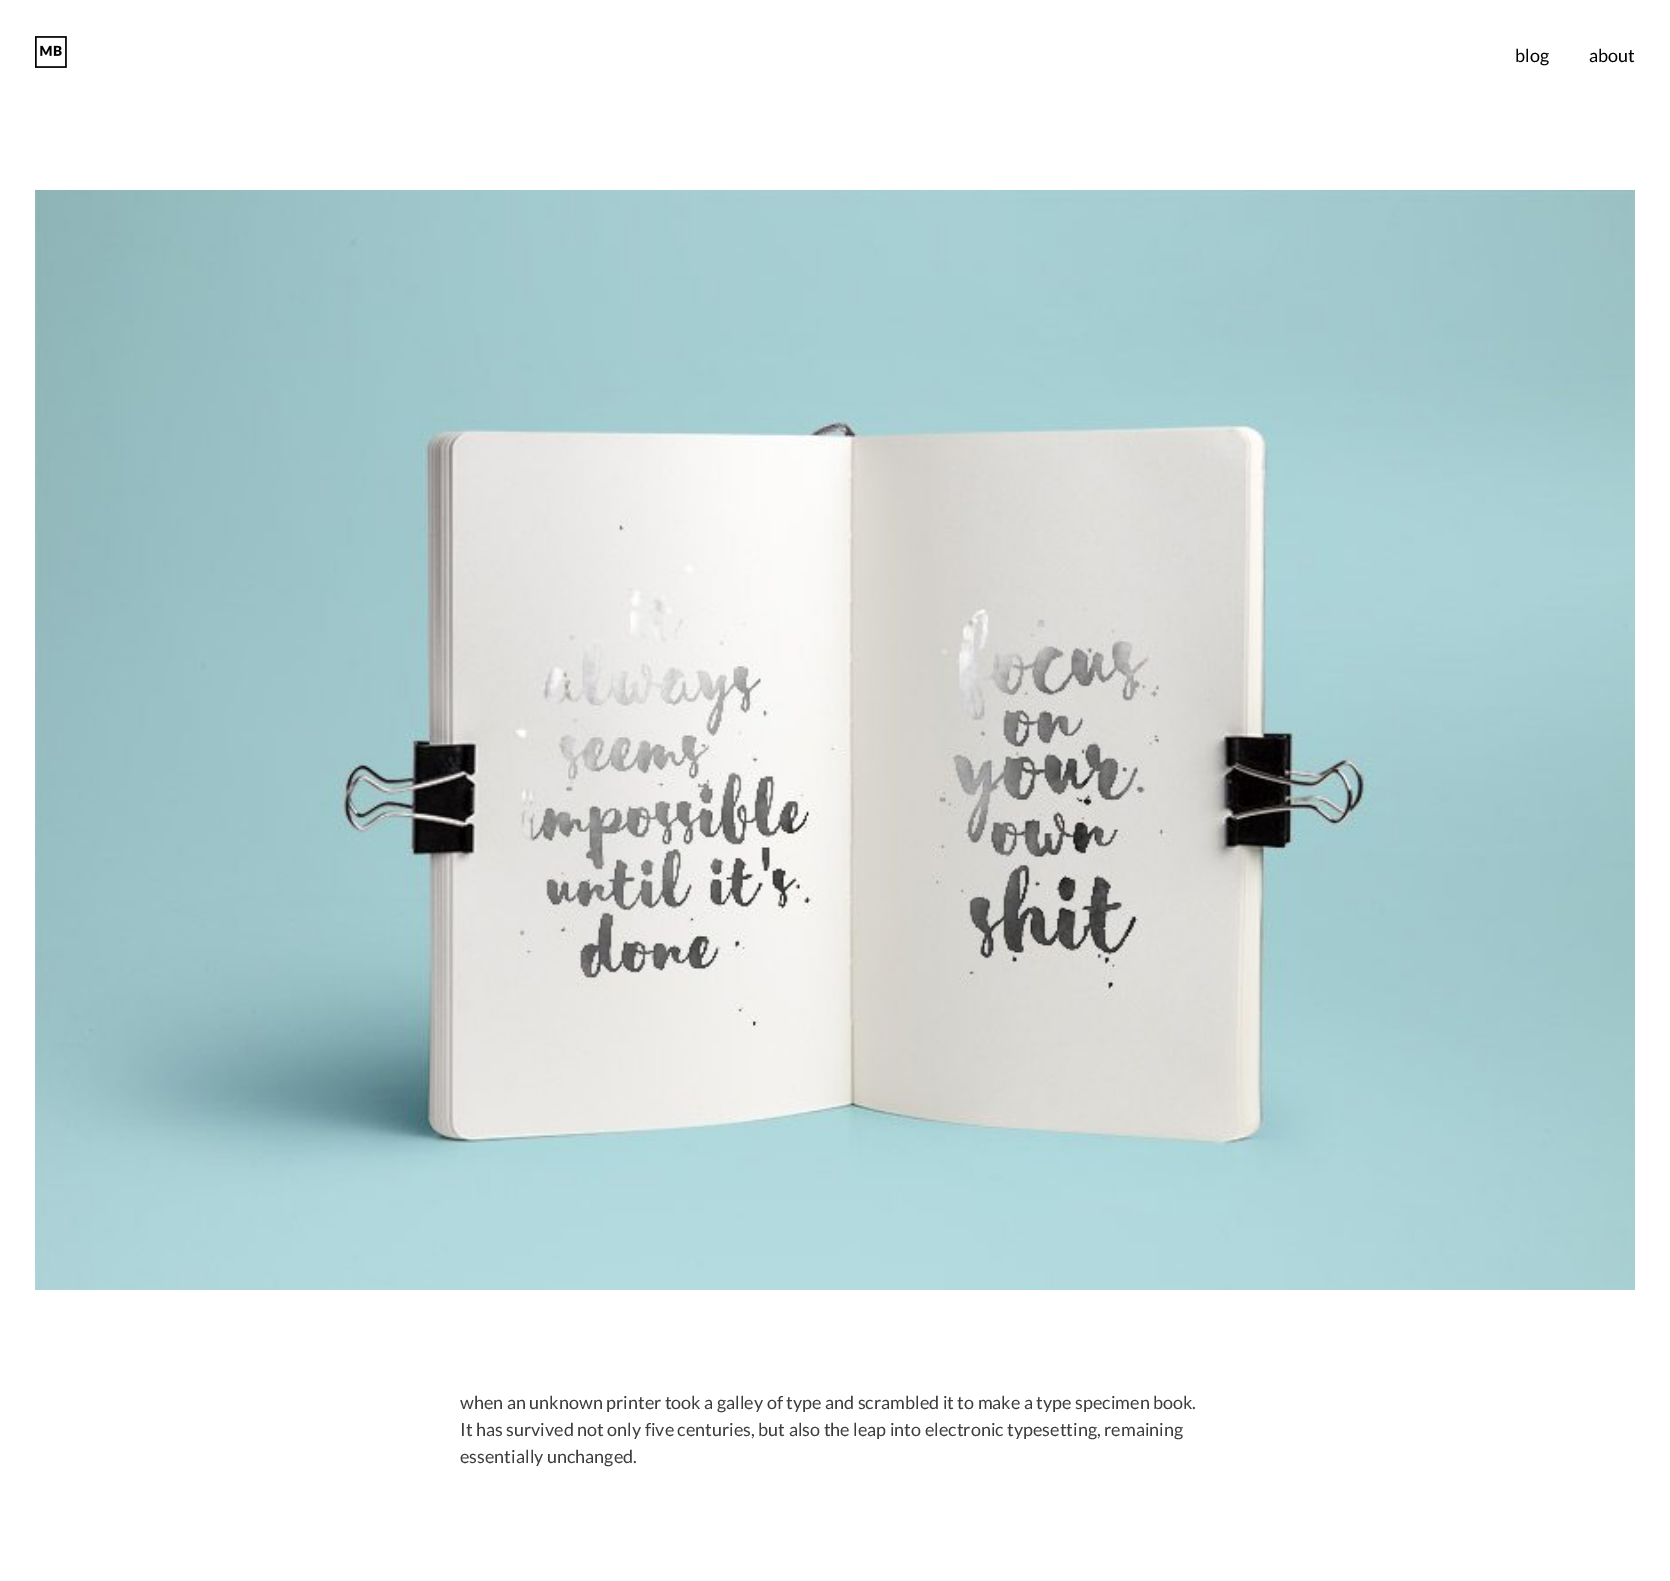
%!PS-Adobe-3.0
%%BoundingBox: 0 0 1670 1581
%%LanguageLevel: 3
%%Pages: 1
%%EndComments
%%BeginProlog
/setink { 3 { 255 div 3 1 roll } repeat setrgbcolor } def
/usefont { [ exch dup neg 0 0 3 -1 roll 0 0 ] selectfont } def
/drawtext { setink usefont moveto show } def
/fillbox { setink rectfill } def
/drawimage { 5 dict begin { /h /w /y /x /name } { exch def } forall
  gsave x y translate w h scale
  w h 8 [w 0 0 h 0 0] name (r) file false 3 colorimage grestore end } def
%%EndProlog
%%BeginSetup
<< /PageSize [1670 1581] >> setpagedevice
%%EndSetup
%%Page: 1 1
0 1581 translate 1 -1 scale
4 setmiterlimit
0 0 1670 1581 255 255 255 fillbox
(assets/img1.rgb) 35 36 32 32 drawimage
(blog) 1515 62 /Lato-Regular 18 0 0 0 drawtext
(about) 1589 62 /Lato-Regular 18 0 0 0 drawtext
(assets/img2.rgb) 35 190 1600 1100 drawimage
(when an unknown printer took a galley of type and scrambled it to make a type specimen book.) 460 1409 /Lato-Regular 18 61 61 61 drawtext
(It has survived not only five centuries, but also the leap into electronic typesetting, remaining) 460 1436 /Lato-Regular 18 61 61 61 drawtext
(essentially unchanged.) 460 1463 /Lato-Regular 18 61 61 61 drawtext
showpage
%%EOF
